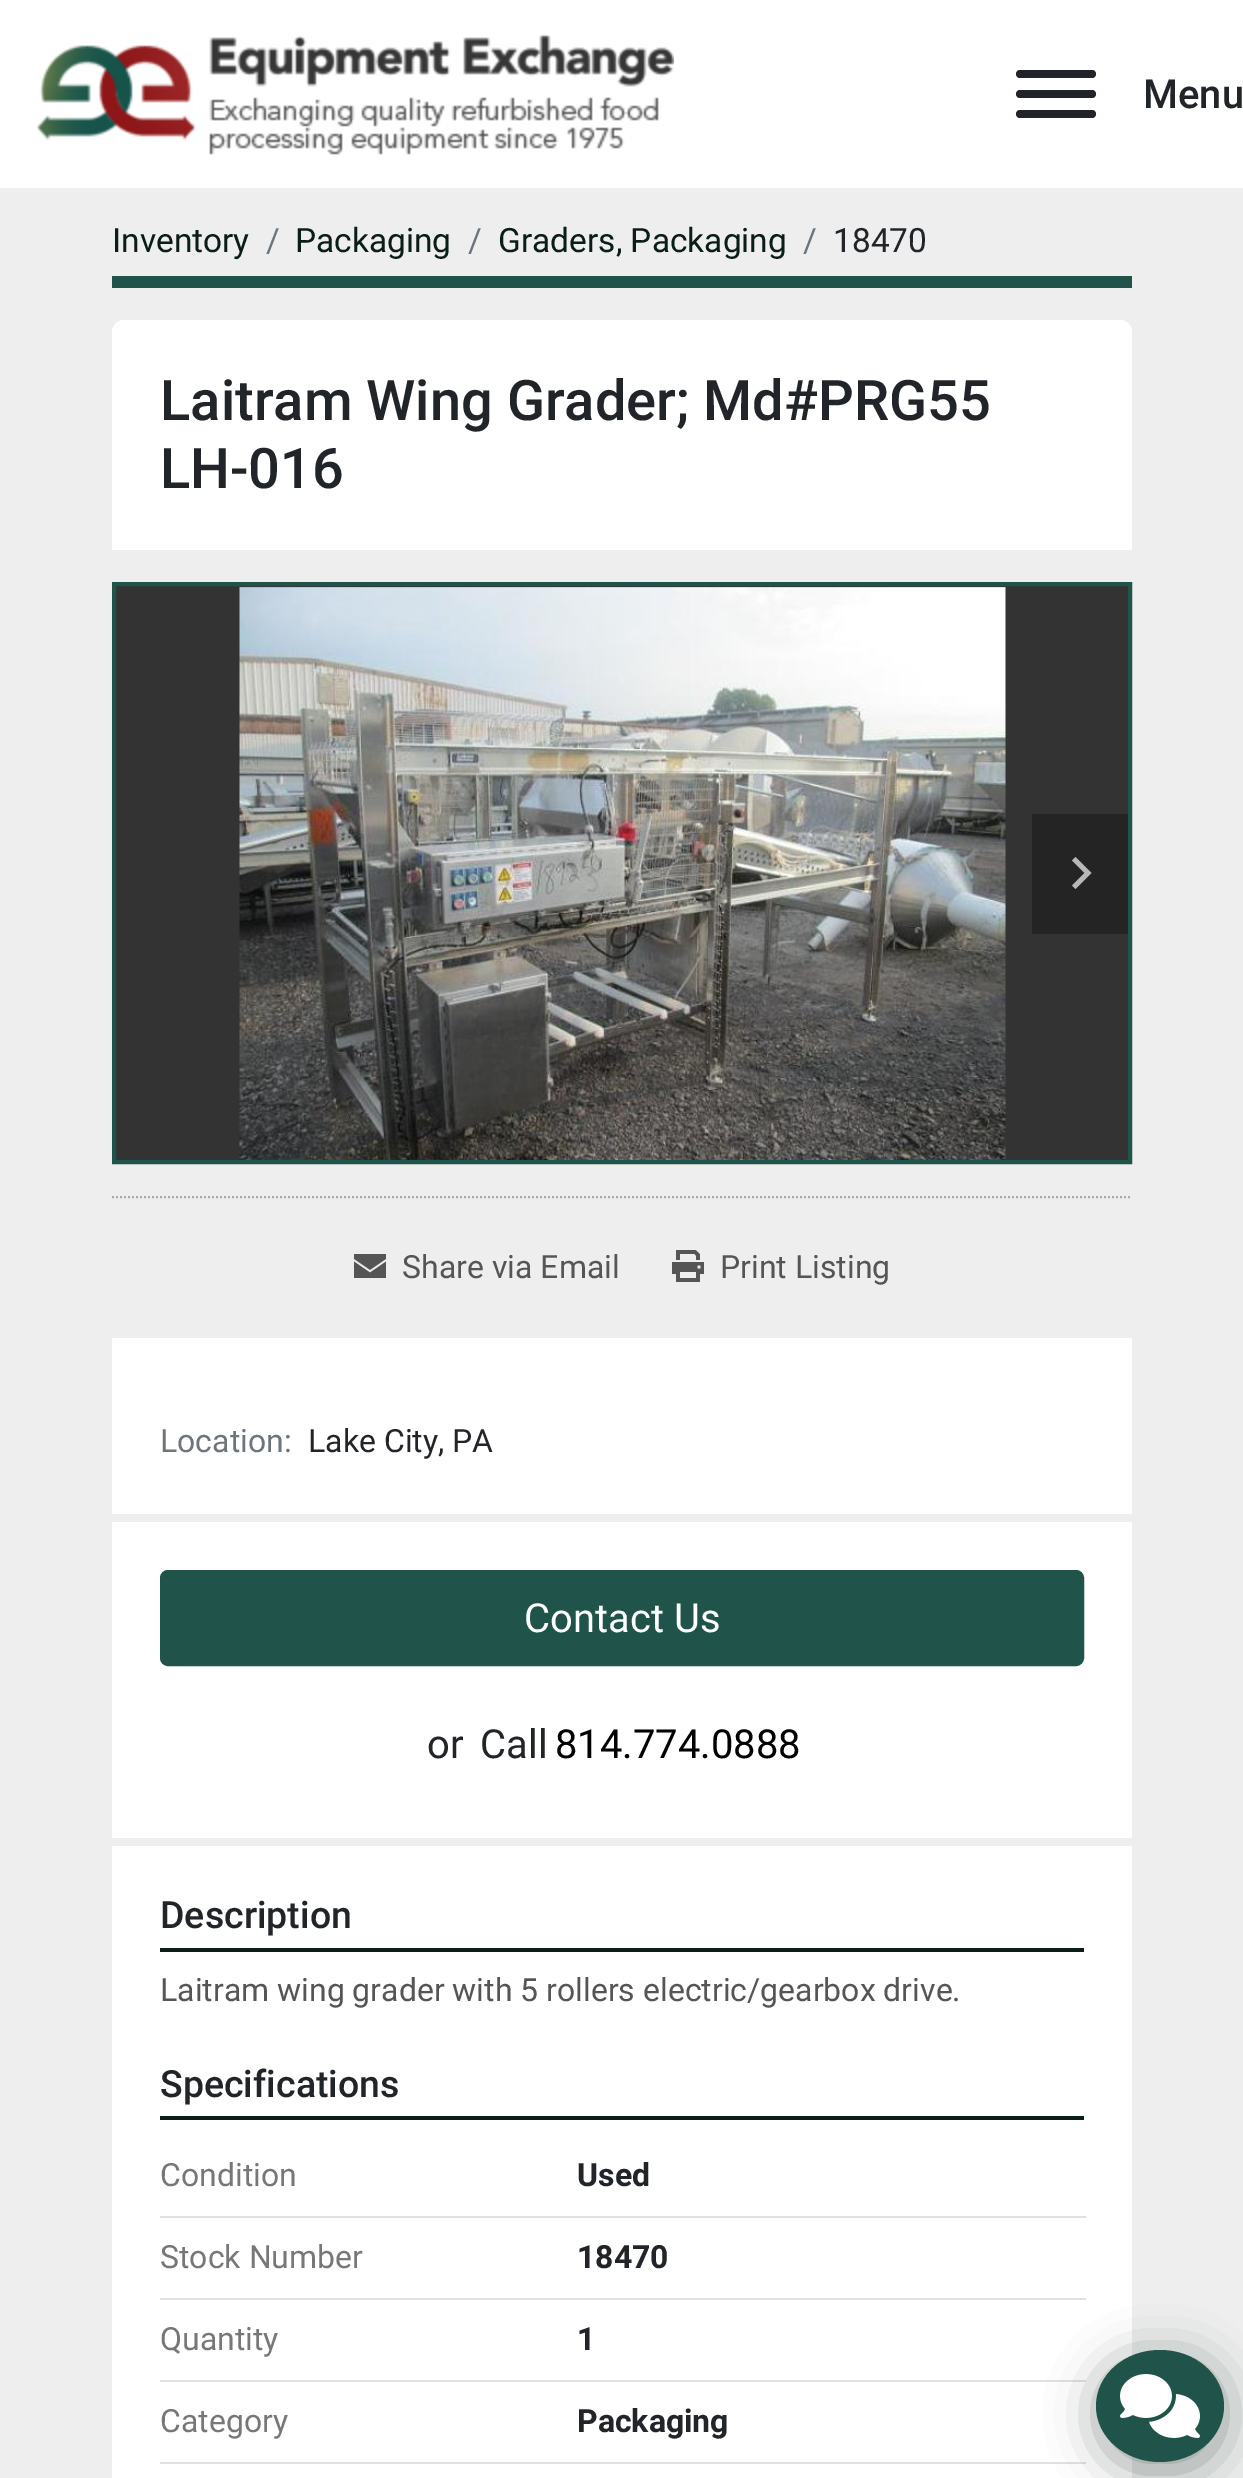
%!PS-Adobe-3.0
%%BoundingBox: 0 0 1243 2478
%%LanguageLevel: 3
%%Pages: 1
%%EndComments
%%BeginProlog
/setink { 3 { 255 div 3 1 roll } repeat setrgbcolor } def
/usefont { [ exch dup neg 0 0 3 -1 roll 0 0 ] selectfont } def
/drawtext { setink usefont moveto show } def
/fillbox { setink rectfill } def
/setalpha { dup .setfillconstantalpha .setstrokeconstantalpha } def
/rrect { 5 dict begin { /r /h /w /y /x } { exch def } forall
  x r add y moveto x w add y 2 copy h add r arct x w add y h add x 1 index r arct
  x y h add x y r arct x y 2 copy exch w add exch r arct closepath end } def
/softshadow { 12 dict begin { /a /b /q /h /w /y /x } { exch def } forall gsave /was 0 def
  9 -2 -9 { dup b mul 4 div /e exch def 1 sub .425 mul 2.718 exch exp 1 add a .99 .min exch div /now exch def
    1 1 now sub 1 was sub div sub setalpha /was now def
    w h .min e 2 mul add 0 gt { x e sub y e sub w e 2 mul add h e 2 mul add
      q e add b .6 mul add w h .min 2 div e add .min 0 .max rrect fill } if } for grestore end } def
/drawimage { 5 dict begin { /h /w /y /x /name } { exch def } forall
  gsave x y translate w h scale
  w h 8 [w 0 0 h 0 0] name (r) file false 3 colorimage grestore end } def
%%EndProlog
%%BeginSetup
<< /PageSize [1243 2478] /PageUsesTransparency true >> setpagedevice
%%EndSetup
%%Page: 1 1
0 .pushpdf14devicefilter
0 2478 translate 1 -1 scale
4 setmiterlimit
0 0 1243 2478 238 238 238 fillbox
0 0 1243 188 255 255 255 fillbox
(assets/img1.rgb) 37 34 637 121 drawimage
33 37 41 setink
1016 90 80 8 4 rrect fill
1016 70 80 8 4 rrect fill
1016 110 80 8 4 rrect fill
(Menu) 1143 108 /Roboto-Medium 40 33 37 41 drawtext
112 276 1020 12 32 84 74 fillbox
(Inventory) 112 252 /Roboto-Regular 33.5 11 29 25 drawtext
(/) 266 252 /Roboto-Regular 33.5 108 117 125 drawtext
(Packaging) 295 252 /Roboto-Regular 33.5 11 29 25 drawtext
(/) 468 252 /Roboto-Regular 33.5 108 117 125 drawtext
(Graders, Packaging) 498 252 /Roboto-Regular 33.5 11 29 25 drawtext
(/) 803 252 /Roboto-Regular 33.5 108 117 125 drawtext
(18470) 833 252 /Roboto-Regular 33.5 33 37 41 drawtext
255 255 255 setink
124 320 moveto 1120 320 lineto 1126.5 320 1132 325.5 1132 332 curveto 1132 550 lineto 112 550 lineto 112 332 lineto 112 325.5 117.5 320 124 320 curveto closepath fill
(Laitram Wing Grader; Md#PRG55) 160 420 /Roboto-Medium 56 33 37 41 drawtext
(LH-016) 160 488 /Roboto-Medium 56 33 37 41 drawtext
51 51 51 setink
114 584 moveto 1130 584 lineto 1130 1162 lineto 114 1162 lineto closepath gsave fill grestore
32 84 74 setink
4 setlinewidth
stroke
(assets/img2.rgb) 239 587 767 573 drawimage
1032 814 96 120 36 36 36 fillbox
184 184 184 setink
1091.5 873 moveto 1075.5 889 lineto 1072 885.5 lineto 1084.5 873 lineto 1072 860.5 lineto 1075.5 857 lineto closepath fill
170 170 170 setink
2 setlinewidth
[2 2] 0 setdash
112 1197 moveto 1132 1197 lineto stroke
(assets/img3.rgb) 354 1254 32 24 drawimage
(Share via Email) 402 1278 /Roboto-Regular 32 85 85 85 drawtext
(assets/img4.rgb) 672 1250 32 32 drawimage
(Print Listing) 720 1278 /Roboto-Regular 32 85 85 85 drawtext
112 1338 1020 1140 255 255 255 fillbox
(Location:) 160 1452 /Roboto-Regular 32 108 117 125 drawtext
(Lake City, PA) 308 1452 /Roboto-Regular 32 33 37 41 drawtext
112 1514 1020 8 238 238 238 fillbox
112 1838 1020 8 238 238 238 fillbox
32 84 74 setink
161 1571 922 94 7 rrect gsave fill grestore
[] 0 setdash
stroke
(Contact Us) 524 1632 /Roboto-Regular 40 255 255 255 drawtext
(or) 427 1758 /Roboto-Regular 40 33 37 41 drawtext
(Call) 480 1758 /Roboto-Regular 40 33 37 41 drawtext
(814.774.0888) 555 1758 /Roboto-Regular 40 0 0 0 drawtext
160 1948 924 4 11 29 25 fillbox
(Description) 160 1928 /Roboto-Medium 37.5 33 37 41 drawtext
(Laitram wing grader with 5 rollers electric/gearbox drive.) 160 2001 /Roboto-Regular 32 85 85 85 drawtext
160 2116 924 4 11 29 25 fillbox
(Specifications) 160 2097 /Roboto-Medium 37.5 33 37 41 drawtext
160 2216 926 2 222 226 230 fillbox
(Condition) 160 2186 /Roboto-Regular 32 119 119 119 drawtext
(Used) 577 2186 /Roboto-Bold 32 33 37 41 drawtext
160 2298 926 2 222 226 230 fillbox
(Stock Number) 160 2268 /Roboto-Regular 32 119 119 119 drawtext
(18470) 577 2268 /Roboto-Bold 32 33 37 41 drawtext
160 2380 926 2 222 226 230 fillbox
(Quantity) 160 2350 /Roboto-Regular 32 119 119 119 drawtext
(1) 577 2350 /Roboto-Bold 32 33 37 41 drawtext
160 2462 926 2 222 226 230 fillbox
(Category) 160 2432 /Roboto-Regular 32 119 119 119 drawtext
(Packaging) 577 2432 /Roboto-Bold 32 33 37 41 drawtext
11 29 25 setink
1096 2358 128 112 56 24 0.4 softshadow
32 84 74 setink
1160 2350 moveto 1195.5 2350 1224 2375 1224 2406 curveto 1224 2437 1195.5 2462 1160 2462 curveto 1124.5 2462 1096 2437 1096 2406 curveto 1096 2375 1124.5 2350 1160 2350 curveto closepath fill
(assets/img5.rgb) 1120 2374 80 64 drawimage
.poppdf14devicefilter showpage
%%EOF
